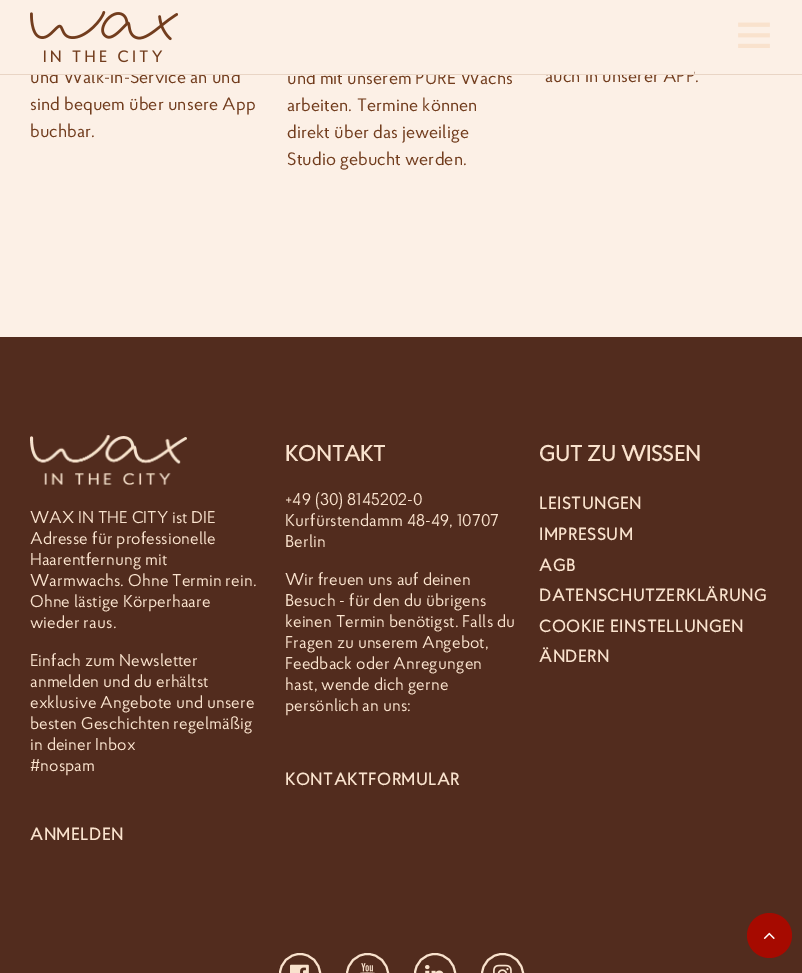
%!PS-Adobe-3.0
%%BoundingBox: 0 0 802 973
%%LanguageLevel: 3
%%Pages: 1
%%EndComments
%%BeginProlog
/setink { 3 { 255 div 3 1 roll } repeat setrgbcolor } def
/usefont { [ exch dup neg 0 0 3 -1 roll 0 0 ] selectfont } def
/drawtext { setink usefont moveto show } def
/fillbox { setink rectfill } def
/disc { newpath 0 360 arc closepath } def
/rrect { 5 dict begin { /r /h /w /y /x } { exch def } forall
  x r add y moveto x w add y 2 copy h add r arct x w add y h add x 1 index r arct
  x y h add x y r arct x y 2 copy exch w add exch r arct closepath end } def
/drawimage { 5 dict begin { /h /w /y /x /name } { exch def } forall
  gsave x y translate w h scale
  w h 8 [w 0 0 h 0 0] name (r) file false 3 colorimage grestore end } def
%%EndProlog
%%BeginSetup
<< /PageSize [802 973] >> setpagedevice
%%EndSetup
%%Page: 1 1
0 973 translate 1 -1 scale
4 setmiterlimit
0 0 802 973 252 240 230 fillbox
(und Walk-in-Service an und) 30 83 /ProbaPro-Regular 18 114 61 30 drawtext
(und mit unserem PURE Wachs) 287 84 /ProbaPro-Regular 18 114 61 30 drawtext
(auch in unserer APP.) 545 82 /ProbaPro-Regular 18 114 61 30 drawtext
56 68 638 6 252 240 230 fillbox
0 74 802 1 233 213 197 fillbox
(assets/img1.rgb) 30 11 148 52 drawimage
(assets/img2.rgb) 738 22 32 26 drawimage
(sind bequem über unsere App) 30 110 /ProbaPro-Regular 18 114 61 30 drawtext
(buchbar.) 30 137 /ProbaPro-Regular 18 114 61 30 drawtext
(arbeiten. Termine können) 287 111 /ProbaPro-Regular 18 114 61 30 drawtext
(direkt über das jeweilige) 287 138 /ProbaPro-Regular 18 114 61 30 drawtext
(Studio gebucht werden.) 287 165 /ProbaPro-Regular 18 114 61 30 drawtext
0 337 802 636 82 44 30 fillbox
(assets/img3.rgb) 30 435 157 50 drawimage
(WAX IN THE CITY ist DIE) 30 523 /ProbaPro-Regular 17 249 226 205 drawtext
(Adresse für professionelle) 30 544 /ProbaPro-Regular 17 249 226 205 drawtext
(Haarentfernung mit) 30 565 /ProbaPro-Regular 17 249 226 205 drawtext
(Warmwachs. Ohne Termin rein.) 30 586 /ProbaPro-Regular 17 249 226 205 drawtext
(Ohne lästige Körperhaare) 30 607 /ProbaPro-Regular 17 249 226 205 drawtext
(wieder raus.) 30 628 /ProbaPro-Regular 17 249 226 205 drawtext
(Einfach zum Newsletter) 30 666 /ProbaPro-Regular 17 249 226 205 drawtext
(anmelden und du erhältst) 30 687 /ProbaPro-Regular 17 249 226 205 drawtext
(exklusive Angebote und unsere) 30 708 /ProbaPro-Regular 17 249 226 205 drawtext
(besten Geschichten regelmäßig) 30 729 /ProbaPro-Regular 17 249 226 205 drawtext
(in deiner Inbox) 30 750 /ProbaPro-Regular 17 249 226 205 drawtext
(#nospam) 30 771 /ProbaPro-Regular 17 249 226 205 drawtext
/ProbaPro-Bold 17 usefont
30 840 moveto 0.8 0 (ANMELDEN) ashow
(KONTAKT) 285 461 /ProbaPro-Bold 22 249 226 205 drawtext
(+49 \(30\) 8145202-0) 285 505 /ProbaPro-Regular 17 249 226 205 drawtext
(Kurfürstendamm 48-49, 10707) 285 526 /ProbaPro-Regular 17 249 226 205 drawtext
(Berlin) 285 547 /ProbaPro-Regular 17 249 226 205 drawtext
(Wir freuen uns auf deinen) 285 585 /ProbaPro-Regular 17 249 226 205 drawtext
(Besuch - für den du übrigens) 285 606 /ProbaPro-Regular 17 249 226 205 drawtext
(keinen Termin benötigst. Falls du) 285 627 /ProbaPro-Regular 17 249 226 205 drawtext
(Fragen zu unserem Angebot,) 285 648 /ProbaPro-Regular 17 249 226 205 drawtext
(Feedback oder Anregungen) 285 669 /ProbaPro-Regular 17 249 226 205 drawtext
(hast, wende dich gerne) 285 690 /ProbaPro-Regular 17 249 226 205 drawtext
(persönlich an uns:) 285 711 /ProbaPro-Regular 17 249 226 205 drawtext
/ProbaPro-Bold 17 usefont
285 785 moveto 0.8 0 (KONTAKTFORMULAR) ashow
(GUT ZU WISSEN) 539 461 /ProbaPro-Bold 22 249 226 205 drawtext
/ProbaPro-Bold 17 usefont
539 509 moveto 0.8 0 (LEISTUNGEN) ashow
539 540 moveto 0.8 0 (IMPRESSUM) ashow
539 571 moveto 0.8 0 (AGB) ashow
539 601 moveto 0.8 0 (DATENSCHUTZERKLÄRUNG) ashow
539 632 moveto 0.8 0 (COOKIE EINSTELLUNGEN) ashow
539 662 moveto 0.8 0 (ÄNDERN) ashow
166 10 0 setink
769.5 935.5 22.5 disc fill
(assets/img4.rgb) 763 932 12 7 drawimage
249 226 205 setink
2 setlinewidth
280 954 40 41 20 rrect stroke
(assets/img5.rgb) 290 964 19 9 drawimage
367.5 974.5 20.5 disc stroke
(assets/img6.rgb) 360 963 15 10 drawimage
415 954 40 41 20 rrect stroke
(assets/img7.rgb) 425 965 19 8 drawimage
502.5 974.5 20.5 disc stroke
(assets/img8.rgb) 493 964 19 9 drawimage
showpage
%%EOF
